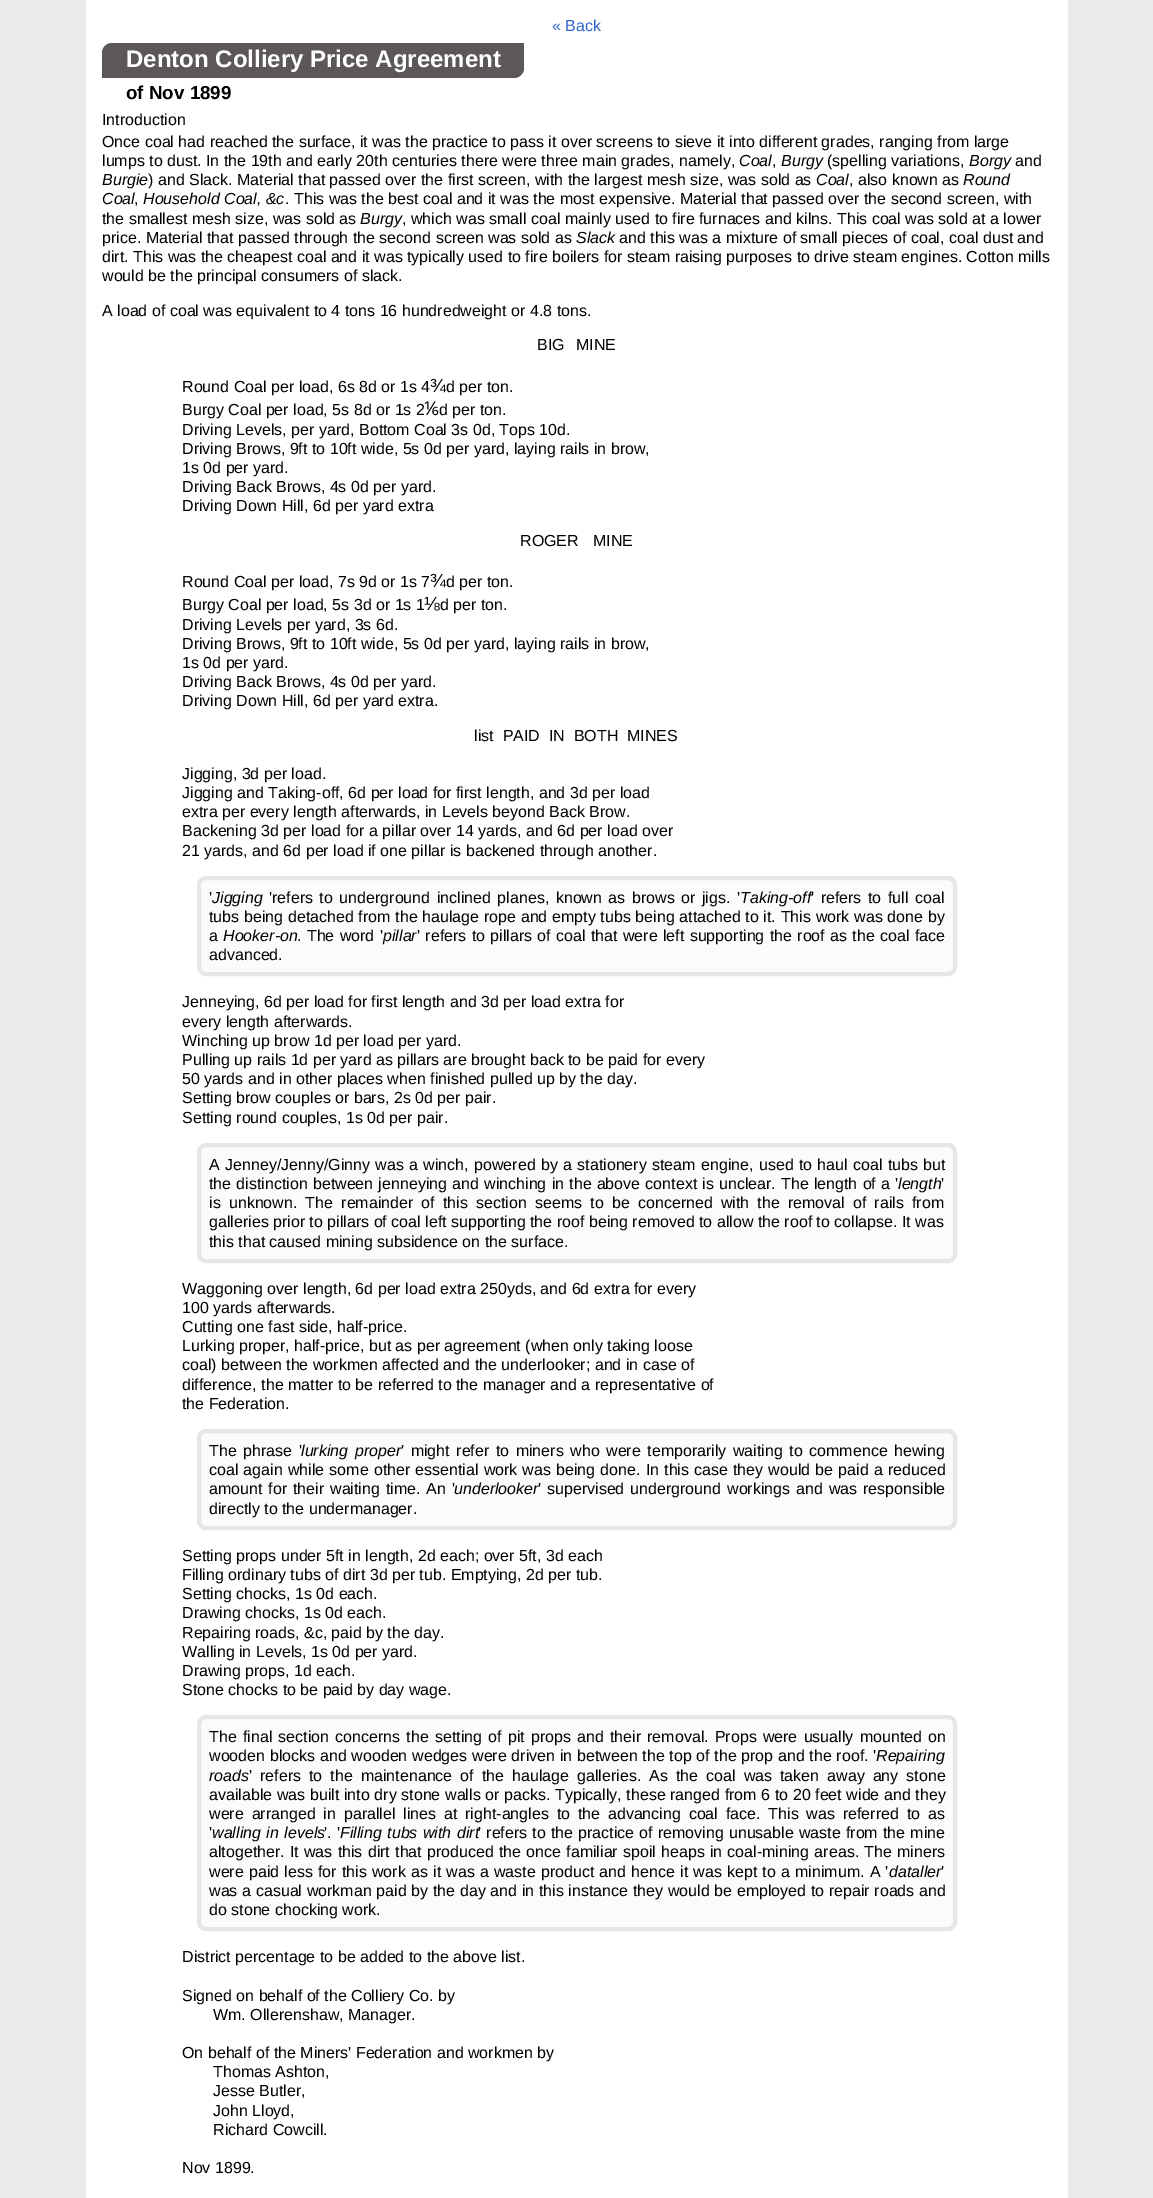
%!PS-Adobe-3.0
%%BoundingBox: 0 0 1153 2198
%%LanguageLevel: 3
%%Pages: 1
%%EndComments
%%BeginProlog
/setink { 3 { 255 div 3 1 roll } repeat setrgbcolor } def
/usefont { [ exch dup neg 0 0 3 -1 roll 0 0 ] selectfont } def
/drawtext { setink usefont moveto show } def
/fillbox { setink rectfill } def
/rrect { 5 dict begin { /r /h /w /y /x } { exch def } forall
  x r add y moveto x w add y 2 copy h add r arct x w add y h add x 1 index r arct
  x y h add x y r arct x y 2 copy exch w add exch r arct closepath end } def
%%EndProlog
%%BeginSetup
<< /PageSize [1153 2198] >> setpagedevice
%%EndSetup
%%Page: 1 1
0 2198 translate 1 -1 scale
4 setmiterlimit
0 0 1153 2198 234 234 234 fillbox
86 0 982 2198 255 255 255 fillbox
(« Back) 552 31 /LiberationSans-Regular 16 51 102 204 drawtext
92 88 87 setink
112 43 moveto 524 43 lineto 524 68 lineto 524 73.5 519.5 78 514 78 curveto 102 78 lineto 102 53 lineto 102 47.5 106.5 43 112 43 curveto closepath fill
(Denton Colliery Price Agreement) 126 67 /LiberationSans-Bold 24 255 255 255 drawtext
(of Nov 1899) 126 99 /LiberationSans-Bold 18.75 0 0 0 drawtext
(Introduction) 102 125 /LiberationSans-Regular 16 0 0 0 drawtext
(Once coal had reached the surface, it was the practice to pass it over screens to sieve it into different grades, ranging from large) 102 147 /LiberationSans-Regular 16 0 0 0 drawtext
(lumps to dust. In the 19th and early 20th centuries there were three main grades, namely,) 102 166 /LiberationSans-Regular 16 0 0 0 drawtext
(Coal) 739 166 /LiberationSans-Italic 16 0 0 0 drawtext
(,) 772 166 /LiberationSans-Regular 16 0 0 0 drawtext
(Burgy) 781 166 /LiberationSans-Italic 16 0 0 0 drawtext
(\(spelling variations,) 827 166 /LiberationSans-Regular 16 0 0 0 drawtext
(Borgy) 969 166 /LiberationSans-Italic 16 0 0 0 drawtext
(and) 1015 166 /LiberationSans-Regular 16 0 0 0 drawtext
(Burgie) 102 185 /LiberationSans-Italic 16 0 0 0 drawtext
(\) and Slack. Material that passed over the first screen, with the largest mesh size, was sold as) 148 185 /LiberationSans-Regular 16 0 0 0 drawtext
(Coal) 816 185 /LiberationSans-Italic 16 0 0 0 drawtext
(, also known as) 849 185 /LiberationSans-Regular 16 0 0 0 drawtext
(Round) 963 185 /LiberationSans-Italic 16 0 0 0 drawtext
(Coal) 102 204 /LiberationSans-Italic 16 0 0 0 drawtext
(,) 134 204 /LiberationSans-Regular 16 0 0 0 drawtext
(Household Coal, &c) 143 204 /LiberationSans-Italic 16 0 0 0 drawtext
(. This was the best coal and it was the most expensive. Material that passed over the second screen, with) 285 204 /LiberationSans-Regular 16 0 0 0 drawtext
(the smallest mesh size, was sold as) 102 224 /LiberationSans-Regular 16 0 0 0 drawtext
(Burgy) 360 224 /LiberationSans-Italic 16 0 0 0 drawtext
(, which was small coal mainly used to fire furnaces and kilns. This coal was sold at a lower) 402 224 /LiberationSans-Regular 16 0 0 0 drawtext
(price. Material that passed through the second screen was sold as) 102 243 /LiberationSans-Regular 16 0 0 0 drawtext
(Slack) 576 243 /LiberationSans-Italic 16 0 0 0 drawtext
(and this was a mixture of small pieces of coal, coal dust and) 619 243 /LiberationSans-Regular 16 0 0 0 drawtext
(dirt. This was the cheapest coal and it was typically used to fire boilers for steam raising purposes to drive steam engines. Cotton mills) 102 262 /LiberationSans-Regular 16 0 0 0 drawtext
(would be the principal consumers of slack.) 102 281 /LiberationSans-Regular 16 0 0 0 drawtext
(A load of coal was equivalent to 4 tons 16 hundredweight or 4.8 tons.) 102 316 /LiberationSans-Regular 16 0 0 0 drawtext
537 350 moveto 7 0 32 (BIG MINE) widthshow
(Round Coal per load, 6s 8d or 1s 4) 182 392 /LiberationSans-Regular 16 0 0 0 drawtext
(¾) 430 392 /LiberationSans-Regular 19 0 0 0 drawtext
(d per ton.) 446 392 /LiberationSans-Regular 16 0 0 0 drawtext
(Burgy Coal per load, 5s 8d or 1s 2) 182 415 /LiberationSans-Regular 16 0 0 0 drawtext
(⅙) 424 415 /NotoSans-Regular 19 0 0 0 drawtext
(d per ton.) 439 415 /LiberationSans-Regular 16 0 0 0 drawtext
(Driving Levels, per yard, Bottom Coal 3s 0d, Tops 10d.) 182 435 /LiberationSans-Regular 16 0 0 0 drawtext
(Driving Brows, 9ft to 10ft wide, 5s 0d per yard, laying rails in brow,) 182 454 /LiberationSans-Regular 16 0 0 0 drawtext
(1s 0d per yard.) 182 473 /LiberationSans-Regular 16 0 0 0 drawtext
(Driving Back Brows, 4s 0d per yard.) 182 492 /LiberationSans-Regular 16 0 0 0 drawtext
(Driving Down Hill, 6d per yard extra) 182 511 /LiberationSans-Regular 16 0 0 0 drawtext
520 546 moveto 10 0 32 (ROGER MINE) widthshow
(Round Coal per load, 7s 9d or 1s 7) 182 587 /LiberationSans-Regular 16 0 0 0 drawtext
(¾) 430 587 /LiberationSans-Regular 19 0 0 0 drawtext
(d per ton.) 446 587 /LiberationSans-Regular 16 0 0 0 drawtext
(Burgy Coal per load, 5s 3d or 1s 1) 182 610 /LiberationSans-Regular 16 0 0 0 drawtext
(⅛) 424 610 /LiberationSans-Regular 19 0 0 0 drawtext
(d per ton.) 440 610 /LiberationSans-Regular 16 0 0 0 drawtext
(Driving Levels per yard, 3s 6d.) 182 630 /LiberationSans-Regular 16 0 0 0 drawtext
(Driving Brows, 9ft to 10ft wide, 5s 0d per yard, laying rails in brow,) 182 649 /LiberationSans-Regular 16 0 0 0 drawtext
(1s 0d per yard.) 182 668 /LiberationSans-Regular 16 0 0 0 drawtext
(Driving Back Brows, 4s 0d per yard.) 182 687 /LiberationSans-Regular 16 0 0 0 drawtext
(Driving Down Hill, 6d per yard extra.) 182 706 /LiberationSans-Regular 16 0 0 0 drawtext
474 741 moveto 4.5 0 32 (list PAID IN BOTH MINES) widthshow
(Jigging, 3d per load.) 182 779 /LiberationSans-Regular 16 0 0 0 drawtext
(Jigging and Taking-off, 6d per load for first length, and 3d per load) 182 798 /LiberationSans-Regular 16 0 0 0 drawtext
(extra per every length afterwards, in Levels beyond Back Brow.) 182 817 /LiberationSans-Regular 16 0 0 0 drawtext
(Backening 3d per load for a pillar over 14 yards, and 6d per load over) 182 836 /LiberationSans-Regular 16 0 0 0 drawtext
(21 yards, and 6d per load if one pillar is backened through another.) 182 856 /LiberationSans-Regular 16 0 0 0 drawtext
251 251 251 setink
199 878 756 96 7 rrect gsave fill grestore
230 230 230 setink
4 setlinewidth
stroke
(') 209 903 /LiberationSans-Regular 16 0 0 0 drawtext
(Jigging) 212 903 /LiberationSans-Italic 16 0 0 0 drawtext
/LiberationSans-Regular 16 usefont
269 903 moveto 2.1 0 32 ('refers to underground inclined planes, known as brows or jigs. ') widthshow
(Taking-off) 740 903 /LiberationSans-Italic 16 0 0 0 drawtext
/LiberationSans-Regular 16 usefont
811 903 moveto 2.1 0 32 (' refers to full coal) widthshow
209 922 moveto 0.3 0 32 (tubs being detached from the haulage rope and empty tubs being attached to it. This work was done by) widthshow
(a) 209 941 /LiberationSans-Regular 16 0 0 0 drawtext
(Hooker-on) 223 941 /LiberationSans-Italic 16 0 0 0 drawtext
/LiberationSans-Regular 16 usefont
297 941 moveto 0.9 0 32 (. The word ') widthshow
(pillar) 383 941 /LiberationSans-Italic 16 0 0 0 drawtext
/LiberationSans-Regular 16 usefont
417 941 moveto 0.9 0 32 (' refers to pillars of coal that were left supporting the roof as the coal face) widthshow
(advanced.) 209 960 /LiberationSans-Regular 16 0 0 0 drawtext
(Jenneying, 6d per load for first length and 3d per load extra for) 182 1007 /LiberationSans-Regular 16 0 0 0 drawtext
(every length afterwards.) 182 1027 /LiberationSans-Regular 16 0 0 0 drawtext
(Winching up brow 1d per load per yard.) 182 1046 /LiberationSans-Regular 16 0 0 0 drawtext
(Pulling up rails 1d per yard as pillars are brought back to be paid for every) 182 1065 /LiberationSans-Regular 16 0 0 0 drawtext
(50 yards and in other places when finished pulled up by the day.) 182 1084 /LiberationSans-Regular 16 0 0 0 drawtext
(Setting brow couples or bars, 2s 0d per pair.) 182 1103 /LiberationSans-Regular 16 0 0 0 drawtext
(Setting round couples, 1s 0d per pair.) 182 1123 /LiberationSans-Regular 16 0 0 0 drawtext
251 251 251 setink
199 1145 756 116 7 rrect gsave fill grestore
230 230 230 setink
stroke
0 0 0 setink
209 1170 moveto 0.9 0 32 (A Jenney/Jenny/Ginny was a winch, powered by a stationery steam engine, used to haul coal tubs but) widthshow
209 1189 moveto 0.75 0 32 (the distinction between jenneying and winching in the above context is unclear. The length of a ') widthshow
(length) 898 1189 /LiberationSans-Italic 16 0 0 0 drawtext
(') 941 1189 /LiberationSans-Regular 16 0 0 0 drawtext
209 1208 moveto 3.75 0 32 (is unknown. The remainder of this section seems to be concerned with the removal of rails from) widthshow
(galleries prior to pillars of coal left supporting the roof being removed to allow the roof to collapse. It was) 209 1227 /LiberationSans-Regular 16 0 0 0 drawtext
(this that caused mining subsidence on the surface.) 209 1247 /LiberationSans-Regular 16 0 0 0 drawtext
(Waggoning over length, 6d per load extra 250yds, and 6d extra for every) 182 1294 /LiberationSans-Regular 16 0 0 0 drawtext
(100 yards afterwards.) 182 1313 /LiberationSans-Regular 16 0 0 0 drawtext
(Cutting one fast side, half-price.) 182 1332 /LiberationSans-Regular 16 0 0 0 drawtext
(Lurking proper, half-price, but as per agreement \(when only taking loose) 182 1351 /LiberationSans-Regular 16 0 0 0 drawtext
(coal\) between the workmen affected and the underlooker; and in case of) 182 1370 /LiberationSans-Regular 16 0 0 0 drawtext
(difference, the matter to be referred to the manager and a representative of) 182 1390 /LiberationSans-Regular 16 0 0 0 drawtext
(the Federation.) 182 1409 /LiberationSans-Regular 16 0 0 0 drawtext
251 251 251 setink
199 1431 756 97 7 rrect gsave fill grestore
230 230 230 setink
stroke
0 0 0 setink
209 1456 moveto 2.1 0 32 (The phrase ') widthshow
/LiberationSans-Italic 16 usefont
301 1456 moveto 2.1 0 32 (lurking proper) widthshow
/LiberationSans-Regular 16 usefont
401 1456 moveto 2.1 0 32 (' might refer to miners who were temporarily waiting to commence hewing) widthshow
209 1475 moveto 0.7 0 32 (coal again while some other essential work was being done. In this case they would be paid a reduced) widthshow
209 1494 moveto 1.5 0 32 (amount for their waiting time. An ') widthshow
(underlooker) 454 1494 /LiberationSans-Italic 16 0 0 0 drawtext
/LiberationSans-Regular 16 usefont
538 1494 moveto 1.5 0 32 (' supervised underground workings and was responsible) widthshow
(directly to the undermanager.) 209 1514 /LiberationSans-Regular 16 0 0 0 drawtext
(Setting props under 5ft in length, 2d each; over 5ft, 3d each) 182 1561 /LiberationSans-Regular 16 0 0 0 drawtext
(Filling ordinary tubs of dirt 3d per tub. Emptying, 2d per tub.) 182 1580 /LiberationSans-Regular 16 0 0 0 drawtext
(Setting chocks, 1s 0d each.) 182 1599 /LiberationSans-Regular 16 0 0 0 drawtext
(Drawing chocks, 1s 0d each.) 182 1618 /LiberationSans-Regular 16 0 0 0 drawtext
(Repairing roads, &c, paid by the day.) 182 1638 /LiberationSans-Regular 16 0 0 0 drawtext
(Walling in Levels, 1s 0d per yard.) 182 1657 /LiberationSans-Regular 16 0 0 0 drawtext
(Drawing props, 1d each.) 182 1676 /LiberationSans-Regular 16 0 0 0 drawtext
(Stone chocks to be paid by day wage.) 182 1695 /LiberationSans-Regular 16 0 0 0 drawtext
251 251 251 setink
199 1717 756 212 7 rrect gsave fill grestore
230 230 230 setink
stroke
0 0 0 setink
209 1742 moveto 1.75 0 32 (The final section concerns the setting of pit props and their removal. Props were usually mounted on) widthshow
209 1761 moveto 0.3 0 32 (wooden blocks and wooden wedges were driven in between the top of the prop and the roof. ') widthshow
(Repairing) 876 1761 /LiberationSans-Italic 16 0 0 0 drawtext
(roads) 209 1781 /LiberationSans-Italic 16 0 0 0 drawtext
/LiberationSans-Regular 16 usefont
249 1781 moveto 3.6 0 32 (' refers to the maintenance of the haulage galleries. As the coal was taken away any stone) widthshow
209 1800 moveto 0.2 0 32 (available was built into dry stone walls or packs. Typically, these ranged from 6 to 20 feet wide and they) widthshow
209 1819 moveto 3.4 0 32 (were arranged in parallel lines at right-angles to the advancing coal face. This was referred to as) widthshow
(') 209 1838 /LiberationSans-Regular 16 0 0 0 drawtext
/LiberationSans-Italic 16 usefont
212 1838 moveto 1 0 32 (walling in levels) widthshow
/LiberationSans-Regular 16 usefont
324 1838 moveto 1 0 32 ('. ') widthshow
/LiberationSans-Italic 16 usefont
340 1838 moveto 1 0 32 (Filling tubs with dirt) widthshow
/LiberationSans-Regular 16 usefont
478 1838 moveto 0.7 0 32 (' refers to the practice of removing unusable waste from the mine) widthshow
209 1857 moveto 0.75 0 32 (altogether. It was this dirt that produced the once familiar spoil heaps in coal-mining areas. The miners) widthshow
209 1877 moveto 0.75 0 32 (were paid less for this work as it was a waste product and hence it was kept to a minimum. A ') widthshow
(dataller) 889 1877 /LiberationSans-Italic 16 0 0 0 drawtext
(') 941 1877 /LiberationSans-Regular 16 0 0 0 drawtext
209 1896 moveto 0.25 0 32 (was a casual workman paid by the day and in this instance they would be employed to repair roads and) widthshow
(do stone chocking work.) 209 1915 /LiberationSans-Regular 16 0 0 0 drawtext
(District percentage to be added to the above list.) 182 1962 /LiberationSans-Regular 16 0 0 0 drawtext
(Signed on behalf of the Colliery Co. by) 182 2001 /LiberationSans-Regular 16 0 0 0 drawtext
(Wm. Ollerenshaw, Manager.) 213 2020 /LiberationSans-Regular 16 0 0 0 drawtext
(On behalf of the Miners' Federation and workmen by) 182 2058 /LiberationSans-Regular 16 0 0 0 drawtext
(Thomas Ashton,) 213 2077 /LiberationSans-Regular 16 0 0 0 drawtext
(Jesse Butler,) 213 2096 /LiberationSans-Regular 16 0 0 0 drawtext
(John Lloyd,) 213 2116 /LiberationSans-Regular 16 0 0 0 drawtext
(Richard Cowcill.) 213 2135 /LiberationSans-Regular 16 0 0 0 drawtext
(Nov 1899.) 182 2173 /LiberationSans-Regular 16 0 0 0 drawtext
showpage
%%EOF
